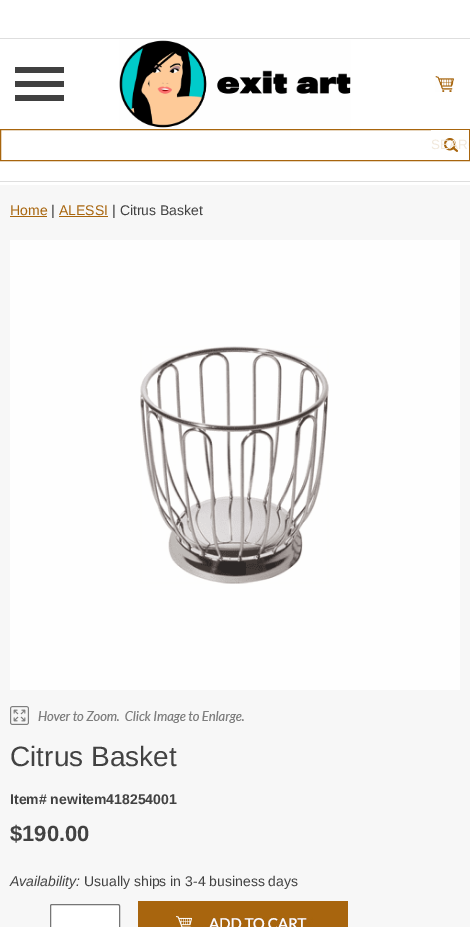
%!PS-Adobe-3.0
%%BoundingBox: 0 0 470 927
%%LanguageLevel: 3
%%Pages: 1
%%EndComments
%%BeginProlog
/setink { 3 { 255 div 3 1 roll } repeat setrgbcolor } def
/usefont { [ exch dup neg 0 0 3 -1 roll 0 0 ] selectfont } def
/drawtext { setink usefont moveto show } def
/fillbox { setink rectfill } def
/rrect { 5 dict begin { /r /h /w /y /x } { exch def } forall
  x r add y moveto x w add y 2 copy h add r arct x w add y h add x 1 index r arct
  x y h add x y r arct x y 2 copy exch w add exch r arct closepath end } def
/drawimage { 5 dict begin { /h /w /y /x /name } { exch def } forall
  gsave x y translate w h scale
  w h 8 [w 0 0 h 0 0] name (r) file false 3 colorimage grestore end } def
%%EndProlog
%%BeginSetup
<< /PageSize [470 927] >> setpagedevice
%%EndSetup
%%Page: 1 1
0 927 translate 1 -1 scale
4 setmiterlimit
0 0 470 927 255 255 255 fillbox
0 38 470 1 222 222 222 fillbox
0 181 470 1 222 222 222 fillbox
(assets/img1.rgb) 15 67 49 34 drawimage
(assets/img2.rgb) 119 40 232 88 drawimage
(assets/img3.rgb) 435 76 19 16 drawimage
168 101 13 setink
0.5 129.5 469 31 rectstroke
(assets/img4.rgb) 431 130 38 28 drawimage
gsave
431 130 38 28 rectclip
(SEARC) 431 149 /LiberationSans-Regular 13.5 242 233 220 drawtext
grestore
0 185 470 742 247 247 247 fillbox
(Home) 10 215 /LiberationSans-Regular 14 168 101 13 drawtext
10 216 37 1 168 101 13 fillbox
(|) 51 215 /LiberationSans-Regular 14 66 66 66 drawtext
(ALESSI) 59 215 /LiberationSans-Regular 14 168 101 13 drawtext
59 216 49 1 168 101 13 fillbox
(| Citrus Basket) 112 215 /LiberationSans-Regular 14 66 66 66 drawtext
(assets/img5.rgb) 10 706 234 19 drawimage
(assets/img6.rgb) 10 240 450 450 drawimage
(Citrus Basket) 10 766 /LiberationSans-Regular 28 66 66 66 drawtext
(Item# newitem418254001) 10 804 /LiberationSans-Bold 14 66 66 66 drawtext
($190.00) 10 841 /LiberationSans-Bold 22 66 66 66 drawtext
(Availability:) 10 886 /LiberationSans-Italic 14 66 66 66 drawtext
(Usually ships in 3-4 business days) 84 886 /LiberationSans-Regular 14 66 66 66 drawtext
255 255 255 setink
50.5 904.5 69 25 1.5 rrect gsave fill grestore
118 118 118 setink
stroke
(assets/img7.rgb) 138 901 210 26 drawimage
showpage
%%EOF
